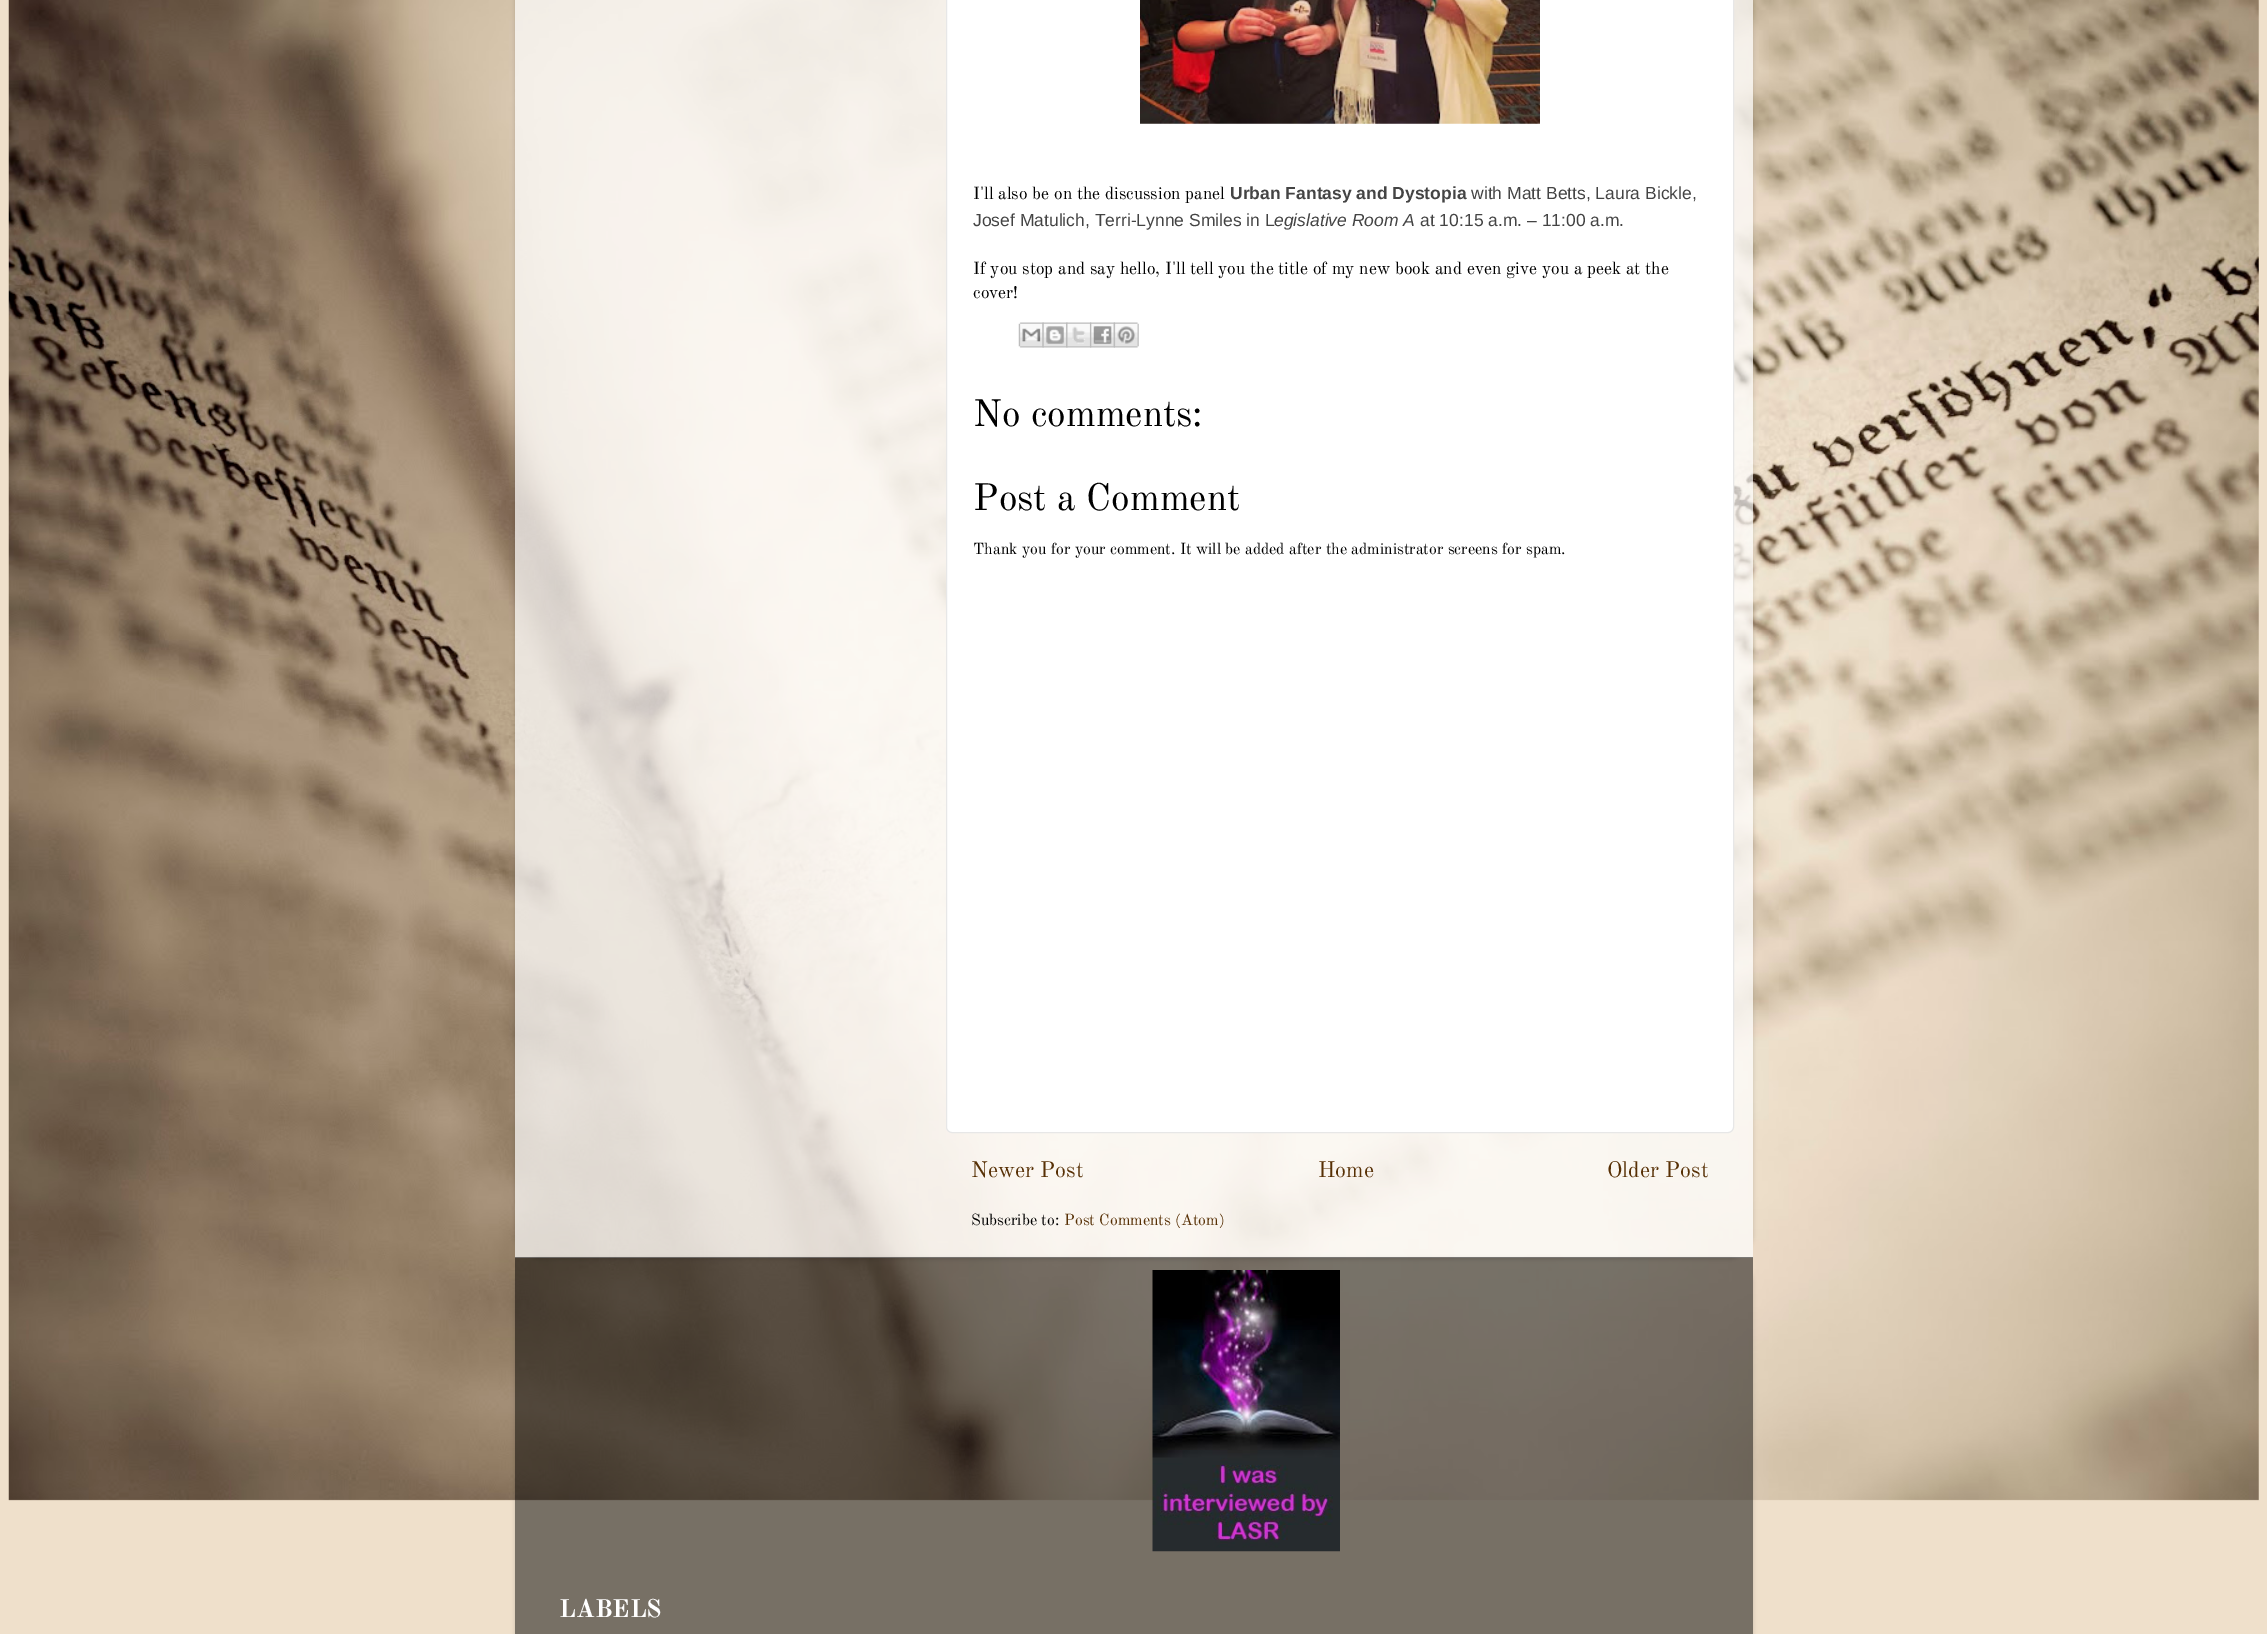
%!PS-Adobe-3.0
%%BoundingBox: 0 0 2267 1634
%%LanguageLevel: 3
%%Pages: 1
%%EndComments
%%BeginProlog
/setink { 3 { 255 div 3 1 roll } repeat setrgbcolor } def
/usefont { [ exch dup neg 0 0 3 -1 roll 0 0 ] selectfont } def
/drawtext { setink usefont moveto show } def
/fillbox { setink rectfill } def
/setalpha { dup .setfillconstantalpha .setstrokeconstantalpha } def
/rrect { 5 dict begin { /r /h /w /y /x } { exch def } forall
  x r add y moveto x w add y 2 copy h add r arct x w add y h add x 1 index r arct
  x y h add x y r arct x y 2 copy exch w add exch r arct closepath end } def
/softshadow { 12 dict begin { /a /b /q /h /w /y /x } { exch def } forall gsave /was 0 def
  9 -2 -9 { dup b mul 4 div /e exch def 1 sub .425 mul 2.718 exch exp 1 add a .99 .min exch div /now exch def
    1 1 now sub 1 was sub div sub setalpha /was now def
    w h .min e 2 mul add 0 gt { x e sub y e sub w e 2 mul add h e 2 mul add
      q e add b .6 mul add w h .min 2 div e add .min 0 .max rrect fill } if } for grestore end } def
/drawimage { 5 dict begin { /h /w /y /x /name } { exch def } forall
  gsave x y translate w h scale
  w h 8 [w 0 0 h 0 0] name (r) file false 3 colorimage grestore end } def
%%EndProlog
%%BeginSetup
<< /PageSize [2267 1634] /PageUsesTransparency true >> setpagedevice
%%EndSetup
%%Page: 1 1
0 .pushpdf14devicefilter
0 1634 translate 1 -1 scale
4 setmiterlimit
0 0 2267 1634 239 224 203 fillbox
(assets/img1.rgb) 8 0 2251 1501 drawimage
gsave
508 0 moveto 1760 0 lineto 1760 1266 lineto 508 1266 lineto closepath 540 -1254 moveto 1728 -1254 lineto 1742 -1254 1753 -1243 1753 -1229 curveto 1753 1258 lineto 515 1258 lineto 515 -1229 lineto 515 -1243 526 -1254 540 -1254 curveto closepath eoclip newpath
0 0 0 setink
515 -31 1238 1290 25 2 0.15 softshadow
grestore
0.7 setalpha
515 0 1238 1258 255 255 255 fillbox
1 setalpha
946.5 -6.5 787 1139 5.5 rrect gsave fill grestore
231 231 231 setink
stroke
(assets/img2.rgb) 1140 0 400 124 drawimage
(I'll also be on the discussion panel) 973 199 /OldStandardTT-Regular 17.3 0 0 0 drawtext
(Urban Fantasy and Dystopia) 1230 199 /LiberationSans-Bold 17.5 68 68 68 drawtext
(with Matt Betts, Laura Bickle,) 1471 199 /LiberationSans-Regular 17.5 68 68 68 drawtext
(Josef Matulich, Terri-Lynne Smiles in L) 973 226 /LiberationSans-Regular 17.5 68 68 68 drawtext
(egislative Room A) 1274 226 /LiberationSans-Italic 17.5 68 68 68 drawtext
(at 10:15 a.m. – 11:00 a.m.) 1420 226 /LiberationSans-Regular 17.5 68 68 68 drawtext
(If you stop and say hello, I'll tell you the title of my new book and even give you a peek at the) 973 274 /OldStandardTT-Regular 17.3 0 0 0 drawtext
(cover!) 973 298 /OldStandardTT-Regular 17.3 0 0 0 drawtext
(assets/img3.rgb) 1018 322 26 26 drawimage
(assets/img4.rgb) 1042 322 26 26 drawimage
(assets/img5.rgb) 1066 322 26 26 drawimage
(assets/img6.rgb) 1090 322 25 26 drawimage
(assets/img7.rgb) 1113 322 26 26 drawimage
(No comments:) 973 426 /OldStandardTT-Regular 37.5 0 0 0 drawtext
(Post a Comment) 973 510 /OldStandardTT-Regular 37.5 0 0 0 drawtext
(Thank you for your comment. It will be added after the administrator screens for spam.) 973 554 /OldStandardTT-Regular 15.75 0 0 0 drawtext
(Newer Post) 971 1177 /OldStandardTT-Regular 22 87 48 5 drawtext
(Home) 1318 1177 /OldStandardTT-Regular 22 87 48 5 drawtext
(Older Post) 1607 1177 /OldStandardTT-Regular 22 87 48 5 drawtext
(Subscribe to:) 971 1225 /OldStandardTT-Regular 15.75 0 0 0 drawtext
(Post Comments \(Atom\)) 1064 1225 /OldStandardTT-Regular 15.75 87 48 5 drawtext
gsave
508 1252 moveto 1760 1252 lineto 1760 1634 lineto 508 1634 lineto closepath 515 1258 moveto 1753 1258 lineto 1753 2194 lineto 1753 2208 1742 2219 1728 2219 curveto 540 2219 lineto 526 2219 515 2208 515 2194 curveto closepath eoclip newpath
0 0 0 setink
515 1259 1238 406 25 2 0.15 softshadow
grestore
0.5 setalpha
515 1257 1238 377 0 0 0 fillbox
1 setalpha
(assets/img8.rgb) 1152 1270 188 282 drawimage
(LABELS) 559 1617 /OldStandardTT-Bold 25 255 255 255 drawtext
.poppdf14devicefilter showpage
%%EOF
